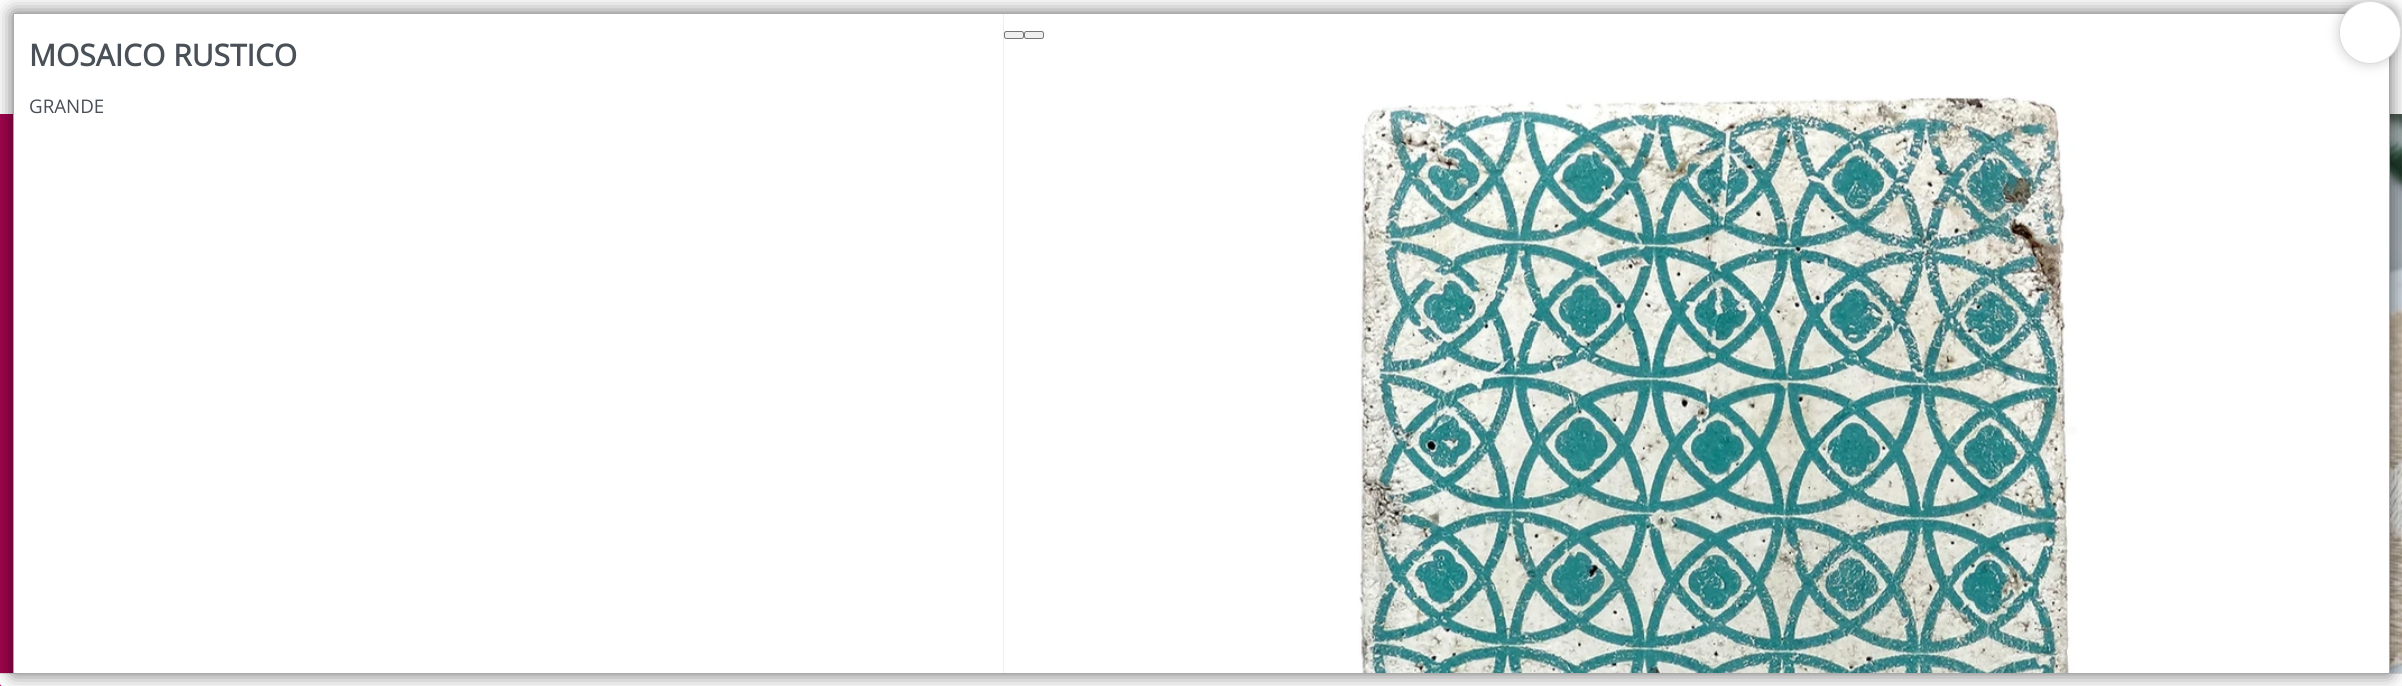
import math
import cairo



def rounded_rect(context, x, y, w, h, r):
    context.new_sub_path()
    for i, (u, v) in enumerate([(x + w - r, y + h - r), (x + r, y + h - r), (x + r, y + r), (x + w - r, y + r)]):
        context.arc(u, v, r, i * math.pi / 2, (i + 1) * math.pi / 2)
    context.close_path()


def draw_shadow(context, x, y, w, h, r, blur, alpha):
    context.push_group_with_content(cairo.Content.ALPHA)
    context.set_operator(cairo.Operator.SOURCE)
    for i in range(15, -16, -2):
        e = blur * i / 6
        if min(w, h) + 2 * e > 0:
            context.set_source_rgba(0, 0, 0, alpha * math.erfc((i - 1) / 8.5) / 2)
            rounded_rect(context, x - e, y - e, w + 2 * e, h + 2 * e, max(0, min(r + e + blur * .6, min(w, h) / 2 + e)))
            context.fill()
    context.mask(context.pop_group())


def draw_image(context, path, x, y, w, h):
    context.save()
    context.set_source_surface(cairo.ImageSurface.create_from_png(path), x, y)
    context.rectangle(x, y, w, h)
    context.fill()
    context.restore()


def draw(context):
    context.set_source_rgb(1, 1, 1)
    context.paint()
    draw_image(context, "images/2.png", 0, 114, 2402, 572)
    context.set_source_rgb(1, 1, 1)
    context.new_path()
    context.move_to(0, 673)
    context.line_to(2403, 673)
    context.line_to(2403, 683.5)
    context.curve_to(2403, 685, 2402, 686, 2400.5, 686)
    context.line_to(2.5, 686)
    context.curve_to(1, 686, 0, 685, 0, 683.5)
    context.close_path()
    context.fill()
    context.set_source_rgb(221 / 255, 221 / 255, 221 / 255)
    context.rectangle(0, 673, 2402, 1)
    context.fill()
    context.set_source_rgb(0, 0, 0)
    draw_shadow(context, 13, 13, 2377, 661, 0, 9.5, 0.6)
    context.set_source_rgb(1, 1, 1)
    context.rectangle(13.5, 13.5, 2376, 660)
    context.fill_preserve()
    context.set_source_rgb(170 / 255, 170 / 255, 170 / 255)
    context.set_line_width(1)
    context.stroke()
    context.set_source_rgb(238 / 255, 238 / 255, 238 / 255)
    context.rectangle(1003, 14, 1, 659)
    context.fill()
    context.set_source_rgb(239 / 255, 239 / 255, 239 / 255)
    rounded_rect(context, 1004.5, 31.5, 19, 7, 2)
    context.fill_preserve()
    context.set_source_rgb(118 / 255, 118 / 255, 118 / 255)
    context.stroke()
    context.set_source_rgb(239 / 255, 239 / 255, 239 / 255)
    rounded_rect(context, 1024.5, 31.5, 19, 7, 2)
    context.fill_preserve()
    context.set_source_rgb(118 / 255, 118 / 255, 118 / 255)
    context.stroke()
    draw_image(context, "images/1.png", 1359, 96, 718, 577)
    context.set_source_rgb(0, 0, 0)
    draw_shadow(context, 2339, 1, 62, 63, 31, 6, 0.2)
    context.set_source_rgb(1, 1, 1)
    rounded_rect(context, 2339.5, 1.5, 61, 62, 30.5)
    context.fill_preserve()
    context.set_source_rgb(221 / 255, 221 / 255, 221 / 255)
    context.stroke()
    context.select_font_face("Open Sans", cairo.FontSlant.NORMAL, cairo.FontWeight.BOLD)
    context.set_font_size(30)
    context.set_source_rgb(73 / 255, 80 / 255, 87 / 255)
    context.move_to(29, 66)
    context.show_text("MOSAICO RUSTICO")
    context.select_font_face("Open Sans")
    context.set_font_size(18.75)
    context.move_to(29, 113)
    context.show_text("GRANDE")


surface = cairo.ImageSurface(cairo.Format.RGB24, 2402, 686)
context = cairo.Context(surface)
options = cairo.FontOptions()
options.set_hint_metrics(cairo.HintMetrics.OFF)
options.set_hint_style(cairo.HintStyle.NONE)
context.set_font_options(options)
context.set_miter_limit(4)
draw(context)
surface.write_to_png("out.png")
